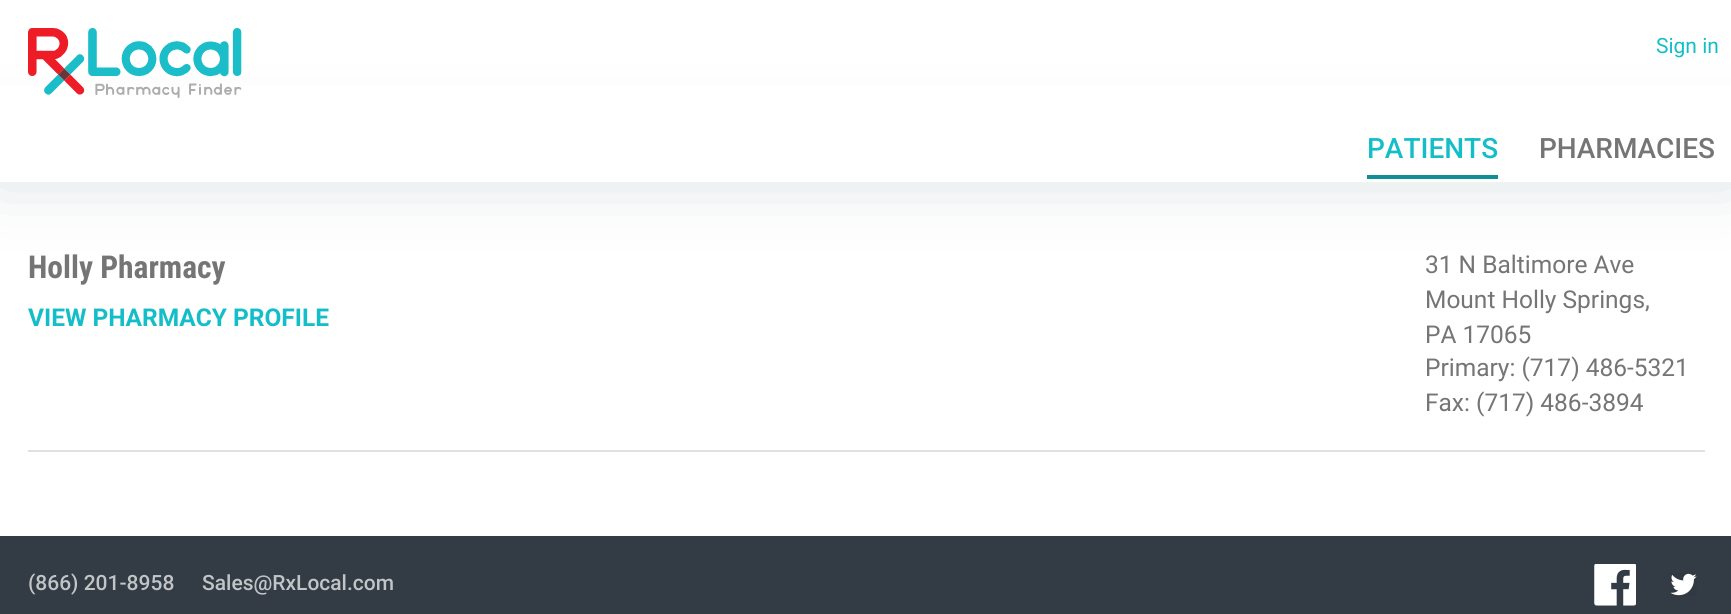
import math
import cairo



def rounded_rect(context, x, y, w, h, r):
    context.new_sub_path()
    for i, (u, v) in enumerate([(x + w - r, y + h - r), (x + r, y + h - r), (x + r, y + r), (x + w - r, y + r)]):
        context.arc(u, v, r, i * math.pi / 2, (i + 1) * math.pi / 2)
    context.close_path()


def draw_shadow(context, x, y, w, h, r, blur, alpha):
    context.push_group_with_content(cairo.Content.ALPHA)
    context.set_operator(cairo.Operator.SOURCE)
    for i in range(15, -16, -2):
        e = blur * i / 6
        if min(w, h) + 2 * e > 0:
            context.set_source_rgba(0, 0, 0, alpha * math.erfc((i - 1) / 8.5) / 2)
            rounded_rect(context, x - e, y - e, w + 2 * e, h + 2 * e, max(0, min(r + e + blur * .6, min(w, h) / 2 + e)))
            context.fill()
    context.mask(context.pop_group())


def draw_image(context, path, x, y, w, h):
    context.save()
    context.set_source_surface(cairo.ImageSurface.create_from_png(path), x, y)
    context.rectangle(x, y, w, h)
    context.fill()
    context.restore()


def draw(context):
    context.set_source_rgb(1, 1, 1)
    context.paint()
    context.set_source_rgb(208 / 255, 220 / 255, 220 / 255)
    draw_shadow(context, 0, 140, 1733, 35, 0, 35, 1)
    context.set_source_rgb(1, 1, 1)
    context.rectangle(0, 85, 1731, 97)
    context.fill()
    draw_image(context, "images/1.png", 28, 28, 214, 70)
    context.set_source_rgb(15 / 255, 142 / 255, 149 / 255)
    context.rectangle(1367, 175, 131, 4)
    context.fill()
    context.set_source_rgb(224 / 255, 224 / 255, 224 / 255)
    context.rectangle(28, 450, 1677, 2)
    context.fill()
    context.set_source_rgb(51 / 255, 60 / 255, 68 / 255)
    context.rectangle(0, 536, 1731, 78)
    context.fill()
    draw_image(context, "images/2.png", 1594, 564, 42, 42)
    draw_image(context, "images/3.png", 1670, 573, 27, 23)
    context.select_font_face("Roboto")
    context.set_font_size(21)
    context.set_source_rgb(20 / 255, 190 / 255, 200 / 255)
    context.move_to(1656, 53)
    context.show_text("Sign in")
    context.select_font_face("Roboto Medium")
    context.set_font_size(28)
    context.move_to(1367, 158)
    context.show_text("PATIENTS")
    context.set_source_rgb(117 / 255, 117 / 255, 117 / 255)
    context.move_to(1539, 158)
    context.show_text("PHARMACIES")
    context.select_font_face("Roboto Condensed", cairo.FontSlant.NORMAL, cairo.FontWeight.BOLD)
    context.set_font_size(31.5)
    context.move_to(28, 278)
    context.show_text("Holly Pharmacy")
    context.select_font_face("Roboto", cairo.FontSlant.NORMAL, cairo.FontWeight.BOLD)
    context.set_font_size(24.5)
    context.set_source_rgb(20 / 255, 190 / 255, 200 / 255)
    context.move_to(28, 326)
    context.show_text("VIEW PHARMACY PROFILE")
    context.select_font_face("Roboto")
    context.set_source_rgb(117 / 255, 117 / 255, 117 / 255)
    context.move_to(1425, 273)
    context.show_text("31 N Baltimore Ave")
    context.move_to(1425, 308)
    context.show_text("Mount Holly Springs,")
    context.move_to(1425, 343)
    context.show_text("PA 17065")
    context.move_to(1425, 376)
    context.show_text("Primary: (717) 486-5321")
    context.move_to(1425, 411)
    context.show_text("Fax: (717) 486-3894")
    context.select_font_face("Roboto Medium")
    context.set_font_size(21)
    context.set_source_rgb(194 / 255, 197 / 255, 199 / 255)
    context.move_to(28, 590)
    context.show_text("(866) 201-8958")
    context.move_to(202, 590)
    context.show_text("Sales@RxLocal.com")


surface = cairo.ImageSurface(cairo.Format.RGB24, 1731, 614)
context = cairo.Context(surface)
options = cairo.FontOptions()
options.set_hint_metrics(cairo.HintMetrics.OFF)
options.set_hint_style(cairo.HintStyle.NONE)
context.set_font_options(options)
context.set_miter_limit(4)
draw(context)
surface.write_to_png("out.png")
